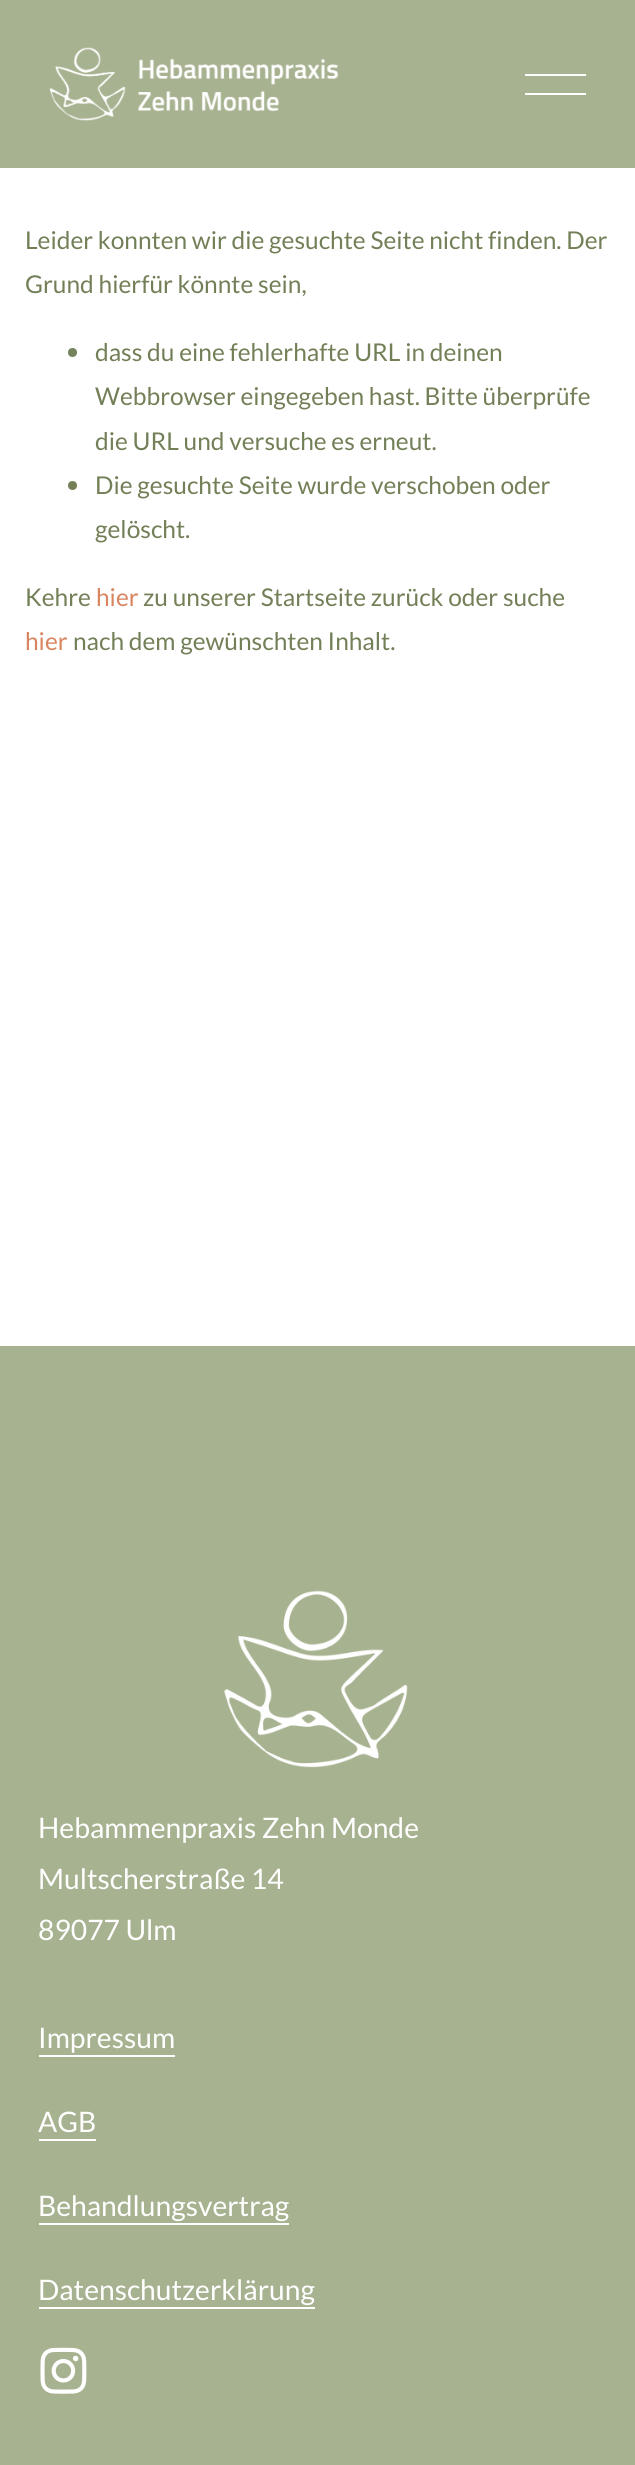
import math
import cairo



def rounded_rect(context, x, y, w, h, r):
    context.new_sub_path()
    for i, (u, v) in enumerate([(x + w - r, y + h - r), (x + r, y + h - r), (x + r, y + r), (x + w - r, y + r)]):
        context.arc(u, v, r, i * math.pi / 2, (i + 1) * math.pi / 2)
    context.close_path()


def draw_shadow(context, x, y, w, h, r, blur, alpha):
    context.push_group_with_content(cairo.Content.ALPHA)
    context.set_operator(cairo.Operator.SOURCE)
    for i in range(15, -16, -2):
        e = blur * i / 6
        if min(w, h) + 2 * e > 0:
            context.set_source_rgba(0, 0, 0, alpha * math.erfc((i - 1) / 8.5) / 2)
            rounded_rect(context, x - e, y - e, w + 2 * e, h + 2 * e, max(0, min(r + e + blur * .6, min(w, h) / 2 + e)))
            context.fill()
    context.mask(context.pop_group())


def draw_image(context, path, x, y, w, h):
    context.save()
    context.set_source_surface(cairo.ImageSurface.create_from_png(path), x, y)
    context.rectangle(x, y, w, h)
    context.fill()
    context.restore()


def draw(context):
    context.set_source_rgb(1, 1, 1)
    context.paint()
    context.set_source_rgb(114 / 255, 127 / 255, 87 / 255)
    context.arc(72.5, 352.5, 4.5, 0, 2 * math.pi)
    context.fill()
    context.arc(72.5, 485.5, 4.5, 0, 2 * math.pi)
    context.fill()
    context.set_source_rgb(1, 1, 1)
    draw_shadow(context, 0, 74, 635, 168, 0, 105, 0.15)
    context.set_source_rgb(167 / 255, 178 / 255, 144 / 255)
    context.rectangle(0, 0, 635, 168)
    context.fill()
    draw_image(context, "images/1.png", 49, 47, 290, 74)
    context.set_source_rgb(1, 1, 1)
    context.rectangle(525, 74, 61, 2)
    context.fill()
    context.rectangle(525, 93, 61, 2)
    context.fill()
    context.set_source_rgb(167 / 255, 178 / 255, 144 / 255)
    context.rectangle(0, 1346, 635, 1119)
    context.fill()
    draw_image(context, "images/2.png", 223, 1590, 185, 178)
    context.set_source_rgb(1, 1, 1)
    context.rectangle(39, 2055, 136, 2)
    context.fill()
    context.rectangle(39, 2139, 57, 2)
    context.fill()
    context.rectangle(39, 2223, 250, 2)
    context.fill()
    context.rectangle(39, 2307, 276, 2)
    context.fill()
    draw_image(context, "images/3.png", 40, 2347, 47, 47)
    context.select_font_face("Lato")
    context.set_font_size(24.5)
    context.set_source_rgb(114 / 255, 127 / 255, 87 / 255)
    context.move_to(25, 249)
    context.show_text("Leider konnten wir die gesuchte Seite nicht finden. Der")
    context.move_to(25, 293)
    context.show_text("Grund hierfür könnte sein,")
    context.move_to(95, 361)
    context.show_text("dass du eine fehlerhafte URL in deinen")
    context.move_to(95, 405)
    context.show_text("Webbrowser eingegeben hast. Bitte überprüfe")
    context.move_to(95, 450)
    context.show_text("die URL und versuche es erneut.")
    context.move_to(95, 494)
    context.show_text("Die gesuchte Seite wurde verschoben oder")
    context.move_to(95, 538)
    context.show_text("gelöscht.")
    context.move_to(25, 606)
    context.show_text("Kehre")
    context.set_source_rgb(217 / 255, 133 / 255, 96 / 255)
    context.move_to(96, 606)
    context.show_text("hier")
    context.set_source_rgb(114 / 255, 127 / 255, 87 / 255)
    context.move_to(143, 606)
    context.show_text("zu unserer Startseite zurück oder suche")
    context.set_source_rgb(217 / 255, 133 / 255, 96 / 255)
    context.move_to(25, 650)
    context.show_text("hier")
    context.set_source_rgb(114 / 255, 127 / 255, 87 / 255)
    context.move_to(73, 650)
    context.show_text("nach dem gewünschten Inhalt.")
    context.set_font_size(28.25)
    context.set_source_rgb(1, 1, 1)
    context.move_to(38, 1838)
    context.show_text("Hebammenpraxis Zehn Monde")
    context.move_to(38, 1889)
    context.show_text("Multscherstraße 14")
    context.move_to(38, 1940)
    context.show_text("89077 Ulm")
    context.move_to(38, 2048)
    context.show_text("Impressum")
    context.move_to(38, 2132)
    context.show_text("AGB")
    context.move_to(38, 2216)
    context.show_text("Behandlungsvertrag")
    context.move_to(38, 2300)
    context.show_text("Datenschutzerklärung")


surface = cairo.ImageSurface(cairo.Format.RGB24, 635, 2465)
context = cairo.Context(surface)
options = cairo.FontOptions()
options.set_hint_metrics(cairo.HintMetrics.OFF)
options.set_hint_style(cairo.HintStyle.NONE)
context.set_font_options(options)
context.set_miter_limit(4)
draw(context)
surface.write_to_png("out.png")
